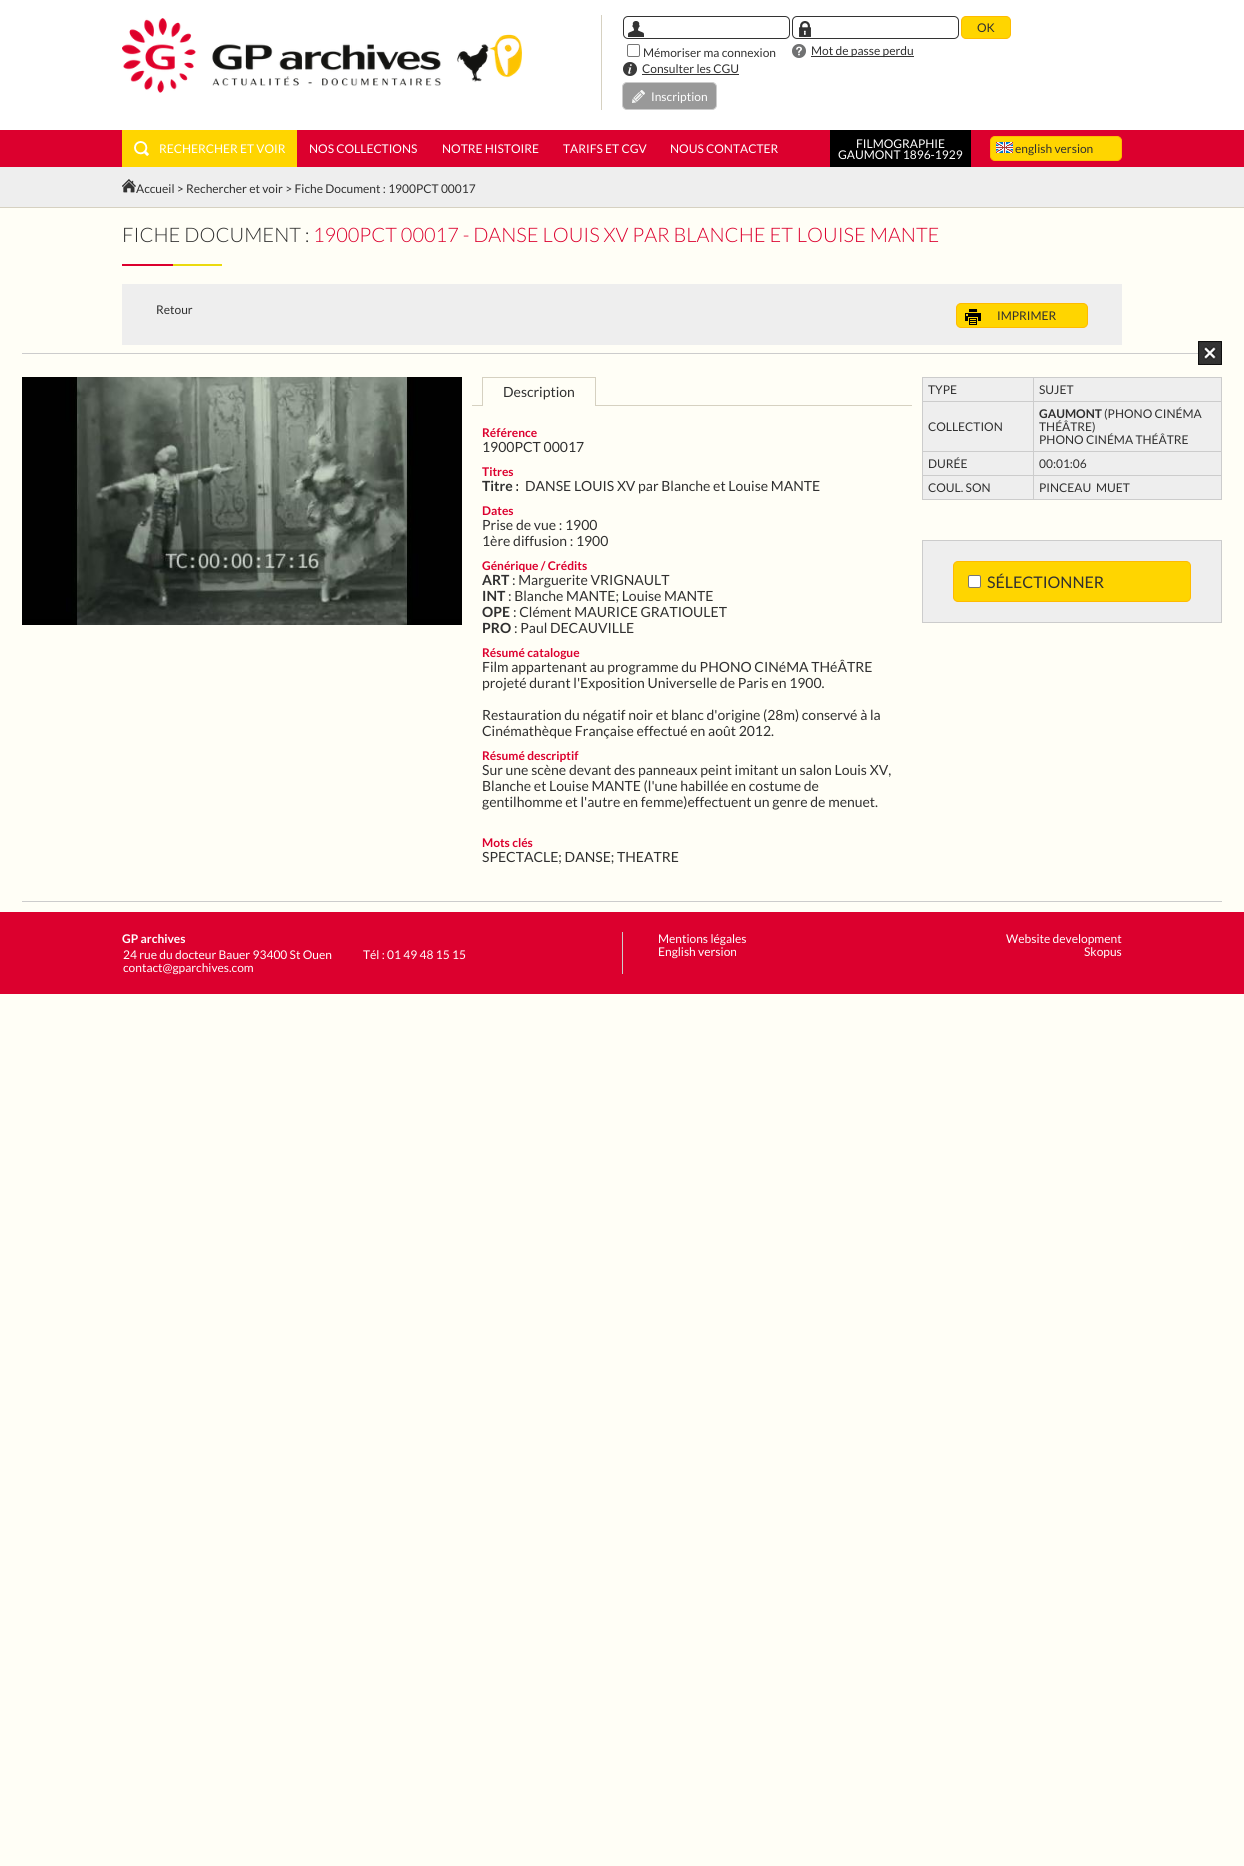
import math
import cairo



def rounded_rect(context, x, y, w, h, r):
    context.new_sub_path()
    for i, (u, v) in enumerate([(x + w - r, y + h - r), (x + r, y + h - r), (x + r, y + r), (x + w - r, y + r)]):
        context.arc(u, v, r, i * math.pi / 2, (i + 1) * math.pi / 2)
    context.close_path()


def draw_image(context, path, x, y, w, h):
    context.save()
    context.set_source_surface(cairo.ImageSurface.create_from_png(path), x, y)
    context.rectangle(x, y, w, h)
    context.fill()
    context.restore()


def draw(context):
    context.set_source_rgb(1, 254 / 255, 246 / 255)
    context.paint()
    context.set_source_rgb(1, 1, 1)
    context.rectangle(0, 0, 1244, 130)
    context.fill()
    draw_image(context, "images/1.png", 122, 18, 400, 75)
    context.set_source_rgb(214 / 255, 209 / 255, 193 / 255)
    context.rectangle(601, 15, 1, 95)
    context.fill()
    rounded_rect(context, 623.5, 16.5, 166, 22, 4.5)
    context.set_source_rgb(51 / 255, 51 / 255, 51 / 255)
    context.set_line_width(1)
    context.stroke()
    draw_image(context, "images/2.png", 628, 21, 16, 16)
    rounded_rect(context, 792.5, 16.5, 166, 22, 4.5)
    context.stroke()
    draw_image(context, "images/3.png", 799, 21, 12, 16)
    context.set_source_rgb(1, 213 / 255, 0)
    rounded_rect(context, 961.5, 16.5, 49, 22, 4.5)
    context.fill_preserve()
    context.set_source_rgb(1, 187 / 255, 0)
    context.stroke()
    rounded_rect(context, 627.5, 44.5, 12, 12, 1.5)
    context.set_source_rgb(118 / 255, 118 / 255, 118 / 255)
    context.stroke()
    draw_image(context, "images/4.png", 792, 44, 14, 14)
    context.set_source_rgb(51 / 255, 51 / 255, 51 / 255)
    context.rectangle(811, 56, 103, 1)
    context.fill()
    draw_image(context, "images/5.png", 623, 62, 14, 14)
    context.rectangle(642, 74, 97, 1)
    context.fill()
    context.set_source_rgb(153 / 255, 153 / 255, 153 / 255)
    rounded_rect(context, 622.5, 82.5, 94, 27, 4.5)
    context.fill_preserve()
    context.set_source_rgb(204 / 255, 204 / 255, 204 / 255)
    context.stroke()
    draw_image(context, "images/6.png", 632, 90, 13, 13)
    context.set_source_rgb(220 / 255, 0, 46 / 255)
    context.rectangle(0, 130, 1244, 37)
    context.fill()
    context.set_source_rgb(1, 213 / 255, 0)
    context.rectangle(122, 130, 175, 37)
    context.fill()
    draw_image(context, "images/7.png", 134, 141, 15, 15)
    context.set_source_rgb(0, 0, 0)
    context.rectangle(830, 130, 141, 37)
    context.fill()
    context.set_source_rgb(1, 213 / 255, 0)
    rounded_rect(context, 990.5, 136.5, 131, 24, 4.5)
    context.fill_preserve()
    context.set_source_rgb(1, 187 / 255, 0)
    context.stroke()
    draw_image(context, "images/8.png", 996, 142, 17, 11)
    context.set_source_rgb(238 / 255, 238 / 255, 238 / 255)
    context.rectangle(0, 167, 1244, 40)
    context.fill()
    context.set_source_rgb(214 / 255, 209 / 255, 193 / 255)
    context.rectangle(0, 207, 1244, 1)
    context.fill()
    draw_image(context, "images/9.png", 122, 179, 14, 14)
    draw_image(context, "images/10.png", 122, 264, 100, 2)
    context.set_source_rgb(238 / 255, 238 / 255, 238 / 255)
    context.rectangle(122, 284, 1000, 61)
    context.fill()
    context.set_source_rgb(1, 213 / 255, 0)
    rounded_rect(context, 956.5, 303.5, 131, 24, 4.5)
    context.fill_preserve()
    context.set_source_rgb(1, 187 / 255, 0)
    context.stroke()
    draw_image(context, "images/11.png", 965, 309, 16, 16)
    context.set_source_rgb(204 / 255, 204 / 255, 204 / 255)
    context.rectangle(22, 353, 1176, 1)
    context.fill()
    draw_image(context, "images/12.png", 1198, 341, 24, 24)
    draw_image(context, "images/13.png", 22, 377, 440, 248)
    context.set_source_rgb(214 / 255, 209 / 255, 193 / 255)
    context.rectangle(472, 405, 440, 1)
    context.fill()
    context.set_source_rgb(1, 254 / 255, 246 / 255)
    context.rectangle(483, 405, 112, 1)
    context.fill()
    context.set_source_rgb(214 / 255, 209 / 255, 193 / 255)
    context.rectangle(482, 377, 114, 1)
    context.fill()
    context.rectangle(595, 377, 1, 29)
    context.fill()
    context.rectangle(482, 377, 1, 29)
    context.fill()
    context.set_source_rgb(238 / 255, 238 / 255, 238 / 255)
    context.rectangle(923, 378, 110, 23)
    context.fill()
    context.set_source_rgb(204 / 255, 204 / 255, 204 / 255)
    context.rectangle(1033, 377, 189, 1)
    context.fill()
    context.rectangle(1033, 401, 189, 1)
    context.fill()
    context.rectangle(1033, 451, 189, 1)
    context.fill()
    context.rectangle(1033, 475, 189, 1)
    context.fill()
    context.rectangle(1221, 475, 1, 25)
    context.fill()
    context.rectangle(1033, 499, 189, 1)
    context.fill()
    context.rectangle(1033, 475, 1, 25)
    context.fill()
    context.rectangle(922, 475, 112, 1)
    context.fill()
    context.rectangle(1033, 451, 1, 25)
    context.fill()
    context.rectangle(922, 451, 112, 1)
    context.fill()
    context.rectangle(1033, 401, 1, 51)
    context.fill()
    context.rectangle(922, 401, 112, 1)
    context.fill()
    context.rectangle(1033, 377, 1, 25)
    context.fill()
    context.rectangle(922, 377, 112, 1)
    context.fill()
    context.rectangle(922, 499, 112, 1)
    context.fill()
    context.rectangle(922, 475, 1, 25)
    context.fill()
    context.rectangle(922, 451, 1, 25)
    context.fill()
    context.rectangle(922, 401, 1, 51)
    context.fill()
    context.rectangle(922, 377, 1, 25)
    context.fill()
    context.set_source_rgb(238 / 255, 238 / 255, 238 / 255)
    context.rectangle(1034, 378, 187, 23)
    context.fill()
    context.set_source_rgb(204 / 255, 204 / 255, 204 / 255)
    context.rectangle(1221, 451, 1, 25)
    context.fill()
    context.rectangle(1221, 401, 1, 51)
    context.fill()
    context.rectangle(1221, 377, 1, 25)
    context.fill()
    context.set_source_rgb(238 / 255, 238 / 255, 238 / 255)
    context.rectangle(923, 402, 110, 49)
    context.fill()
    context.rectangle(1034, 402, 187, 49)
    context.fill()
    context.rectangle(923, 452, 110, 23)
    context.fill()
    context.rectangle(1034, 452, 187, 23)
    context.fill()
    context.rectangle(923, 476, 110, 23)
    context.fill()
    context.rectangle(1034, 476, 187, 23)
    context.fill()
    context.rectangle(922.5, 540.5, 299, 82)
    context.fill_preserve()
    context.set_source_rgb(204 / 255, 204 / 255, 204 / 255)
    context.stroke()
    context.set_source_rgb(1, 213 / 255, 0)
    rounded_rect(context, 953.5, 561.5, 237, 40, 4.5)
    context.fill_preserve()
    context.set_source_rgb(1, 187 / 255, 0)
    context.stroke()
    context.set_source_rgb(1, 1, 1)
    rounded_rect(context, 968.5, 575.5, 12, 12, 1.5)
    context.fill_preserve()
    context.set_source_rgb(118 / 255, 118 / 255, 118 / 255)
    context.stroke()
    context.set_source_rgb(204 / 255, 204 / 255, 204 / 255)
    context.rectangle(22, 901, 1200, 1)
    context.fill()
    context.set_source_rgb(220 / 255, 0, 46 / 255)
    context.rectangle(0, 912, 1244, 82)
    context.fill()
    context.set_source_rgb(204 / 255, 204 / 255, 204 / 255)
    context.rectangle(622, 932, 1, 42)
    context.fill()
    context.select_font_face("Lato")
    context.set_font_size(12)
    context.set_source_rgb(48 / 255, 48 / 255, 48 / 255)
    context.move_to(977, 32)
    context.show_text("OK")
    context.move_to(643, 57)
    context.show_text("Mémoriser ma connexion")
    context.move_to(811, 55)
    context.show_text("Mot de passe perdu")
    context.move_to(642, 73)
    context.show_text("Consulter les CGU")
    context.set_source_rgb(1, 1, 1)
    context.move_to(651, 101)
    context.show_text("Inscription")
    context.move_to(159, 153)
    context.show_text("RECHERCHER ET VOIR")
    context.move_to(309, 153)
    context.show_text("NOS COLLECTIONS")
    context.move_to(442, 153)
    context.show_text("NOTRE HISTOIRE")
    context.move_to(563, 153)
    context.show_text("TARIFS ET CGV")
    context.move_to(670, 153)
    context.show_text("NOUS CONTACTER")
    context.move_to(856, 148)
    context.show_text("FILMOGRAPHIE")
    context.move_to(838, 159)
    context.show_text("GAUMONT 1896-1929")
    context.set_source_rgb(48 / 255, 48 / 255, 48 / 255)
    context.move_to(1015, 153)
    context.show_text("english version")
    context.move_to(136, 193)
    context.show_text("Accueil > Rechercher et voir > Fiche Document : 1900PCT 00017")
    context.select_font_face("Lato Light")
    context.set_font_size(20)
    context.move_to(122, 242)
    context.show_text("FICHE DOCUMENT :")
    context.set_source_rgb(220 / 255, 0, 46 / 255)
    context.move_to(313, 242)
    context.show_text("1900PCT 00017 - DANSE LOUIS XV PAR BLANCHE ET LOUISE MANTE")
    context.select_font_face("Lato")
    context.set_font_size(12)
    context.set_source_rgb(48 / 255, 48 / 255, 48 / 255)
    context.move_to(156, 314)
    context.show_text("Retour")
    context.move_to(997, 320)
    context.show_text("IMPRIMER")
    context.set_font_size(14)
    context.move_to(503, 397)
    context.show_text("Description")
    context.select_font_face("Lato", cairo.FontSlant.NORMAL, cairo.FontWeight.BOLD)
    context.set_font_size(12)
    context.set_source_rgb(220 / 255, 0, 46 / 255)
    context.move_to(482, 437)
    context.show_text("Référence")
    context.select_font_face("Lato")
    context.set_font_size(14)
    context.set_source_rgb(48 / 255, 48 / 255, 48 / 255)
    context.move_to(482, 452)
    context.show_text("1900PCT 00017")
    context.select_font_face("Lato", cairo.FontSlant.NORMAL, cairo.FontWeight.BOLD)
    context.set_font_size(12)
    context.set_source_rgb(220 / 255, 0, 46 / 255)
    context.move_to(482, 476)
    context.show_text("Titres")
    context.set_font_size(14)
    context.set_source_rgb(48 / 255, 48 / 255, 48 / 255)
    context.move_to(482, 491)
    context.show_text("Titre :")
    context.select_font_face("Lato")
    context.move_to(525, 491)
    context.show_text("DANSE LOUIS XV par Blanche et Louise MANTE")
    context.select_font_face("Lato", cairo.FontSlant.NORMAL, cairo.FontWeight.BOLD)
    context.set_font_size(12)
    context.set_source_rgb(220 / 255, 0, 46 / 255)
    context.move_to(482, 515)
    context.show_text("Dates")
    context.select_font_face("Lato")
    context.set_font_size(14)
    context.set_source_rgb(48 / 255, 48 / 255, 48 / 255)
    context.move_to(482, 530)
    context.show_text("Prise de vue : 1900")
    context.move_to(482, 546)
    context.show_text("1ère diffusion : 1900")
    context.select_font_face("Lato", cairo.FontSlant.NORMAL, cairo.FontWeight.BOLD)
    context.set_font_size(12)
    context.set_source_rgb(220 / 255, 0, 46 / 255)
    context.move_to(482, 570)
    context.show_text("Générique / Crédits")
    context.set_font_size(14)
    context.set_source_rgb(48 / 255, 48 / 255, 48 / 255)
    context.move_to(482, 585)
    context.show_text("ART")
    context.select_font_face("Lato")
    context.move_to(512, 585)
    context.show_text(": Marguerite VRIGNAULT")
    context.select_font_face("Lato", cairo.FontSlant.NORMAL, cairo.FontWeight.BOLD)
    context.move_to(482, 601)
    context.show_text("INT")
    context.select_font_face("Lato")
    context.move_to(508, 601)
    context.show_text(": Blanche MANTE; Louise MANTE")
    context.select_font_face("Lato", cairo.FontSlant.NORMAL, cairo.FontWeight.BOLD)
    context.move_to(482, 617)
    context.show_text("OPE")
    context.select_font_face("Lato")
    context.move_to(513, 617)
    context.show_text(": Clément MAURICE GRATIOULET")
    context.select_font_face("Lato", cairo.FontSlant.NORMAL, cairo.FontWeight.BOLD)
    context.move_to(482, 633)
    context.show_text("PRO")
    context.select_font_face("Lato")
    context.move_to(514, 633)
    context.show_text(": Paul DECAUVILLE")
    context.select_font_face("Lato", cairo.FontSlant.NORMAL, cairo.FontWeight.BOLD)
    context.set_font_size(12)
    context.set_source_rgb(220 / 255, 0, 46 / 255)
    context.move_to(482, 657)
    context.show_text("Résumé catalogue")
    context.select_font_face("Lato")
    context.set_font_size(14)
    context.set_source_rgb(48 / 255, 48 / 255, 48 / 255)
    context.move_to(482, 672)
    context.show_text("Film appartenant au programme du PHONO CINéMA THéÂTRE")
    context.move_to(482, 688)
    context.show_text("projeté durant l'Exposition Universelle de Paris en 1900.")
    context.move_to(482, 720)
    context.show_text("Restauration du négatif noir et blanc d'origine (28m) conservé à la")
    context.move_to(482, 736)
    context.show_text("Cinémathèque Française effectué en août 2012.")
    context.select_font_face("Lato", cairo.FontSlant.NORMAL, cairo.FontWeight.BOLD)
    context.set_font_size(12)
    context.set_source_rgb(220 / 255, 0, 46 / 255)
    context.move_to(482, 760)
    context.show_text("Résumé descriptif")
    context.select_font_face("Lato")
    context.set_font_size(14)
    context.set_source_rgb(48 / 255, 48 / 255, 48 / 255)
    context.move_to(482, 775)
    context.show_text("Sur une scène devant des panneaux peint imitant un salon Louis XV,")
    context.move_to(482, 791)
    context.show_text("Blanche et Louise MANTE (l'une habillée en costume de")
    context.move_to(482, 807)
    context.show_text("gentilhomme et l'autre en femme)effectuent un genre de menuet.")
    context.select_font_face("Lato", cairo.FontSlant.NORMAL, cairo.FontWeight.BOLD)
    context.set_font_size(12)
    context.set_source_rgb(220 / 255, 0, 46 / 255)
    context.move_to(482, 847)
    context.show_text("Mots clés")
    context.select_font_face("Lato")
    context.set_font_size(14)
    context.set_source_rgb(48 / 255, 48 / 255, 48 / 255)
    context.move_to(482, 862)
    context.show_text("SPECTACLE; DANSE; THEATRE")
    context.set_font_size(12)
    context.move_to(928, 394)
    context.show_text("TYPE")
    context.move_to(1039, 394)
    context.show_text("SUJET")
    context.move_to(928, 431)
    context.show_text("COLLECTION")
    context.select_font_face("Lato", cairo.FontSlant.NORMAL, cairo.FontWeight.BOLD)
    context.move_to(1039, 418)
    context.show_text("GAUMONT")
    context.select_font_face("Lato")
    context.move_to(1104, 418)
    context.show_text("(PHONO CINÉMA")
    context.move_to(1039, 431)
    context.show_text("THÉÂTRE)")
    context.move_to(1039, 444)
    context.show_text("PHONO CINÉMA THÉÂTRE")
    context.move_to(928, 468)
    context.show_text("DURÉE")
    context.move_to(1039, 468)
    context.show_text("00:01:06")
    context.move_to(928, 492)
    context.show_text("COUL. SON")
    context.move_to(1039, 492)
    context.show_text("PINCEAU")
    context.move_to(1096, 492)
    context.show_text("MUET")
    context.set_font_size(16)
    context.move_to(987, 588)
    context.show_text("SÉLECTIONNER")
    context.select_font_face("Lato", cairo.FontSlant.NORMAL, cairo.FontWeight.BOLD)
    context.set_font_size(12)
    context.set_source_rgb(1, 1, 1)
    context.move_to(122, 943)
    context.show_text("GP archives")
    context.select_font_face("Lato")
    context.move_to(123, 959)
    context.show_text("24 rue du docteur Bauer 93400 St Ouen")
    context.move_to(123, 972)
    context.show_text("contact@gparchives.com")
    context.move_to(363, 959)
    context.show_text("Tél : 01 49 48 15 15")
    context.move_to(658, 943)
    context.show_text("Mentions légales")
    context.move_to(658, 956)
    context.show_text("English version")
    context.move_to(1006, 943)
    context.show_text("Website development")
    context.move_to(1084, 956)
    context.show_text("Skopus")


surface = cairo.ImageSurface(cairo.Format.RGB24, 1244, 1866)
context = cairo.Context(surface)
options = cairo.FontOptions()
options.set_hint_metrics(cairo.HintMetrics.OFF)
options.set_hint_style(cairo.HintStyle.NONE)
context.set_font_options(options)
context.set_miter_limit(4)
draw(context)
surface.write_to_png("out.png")
